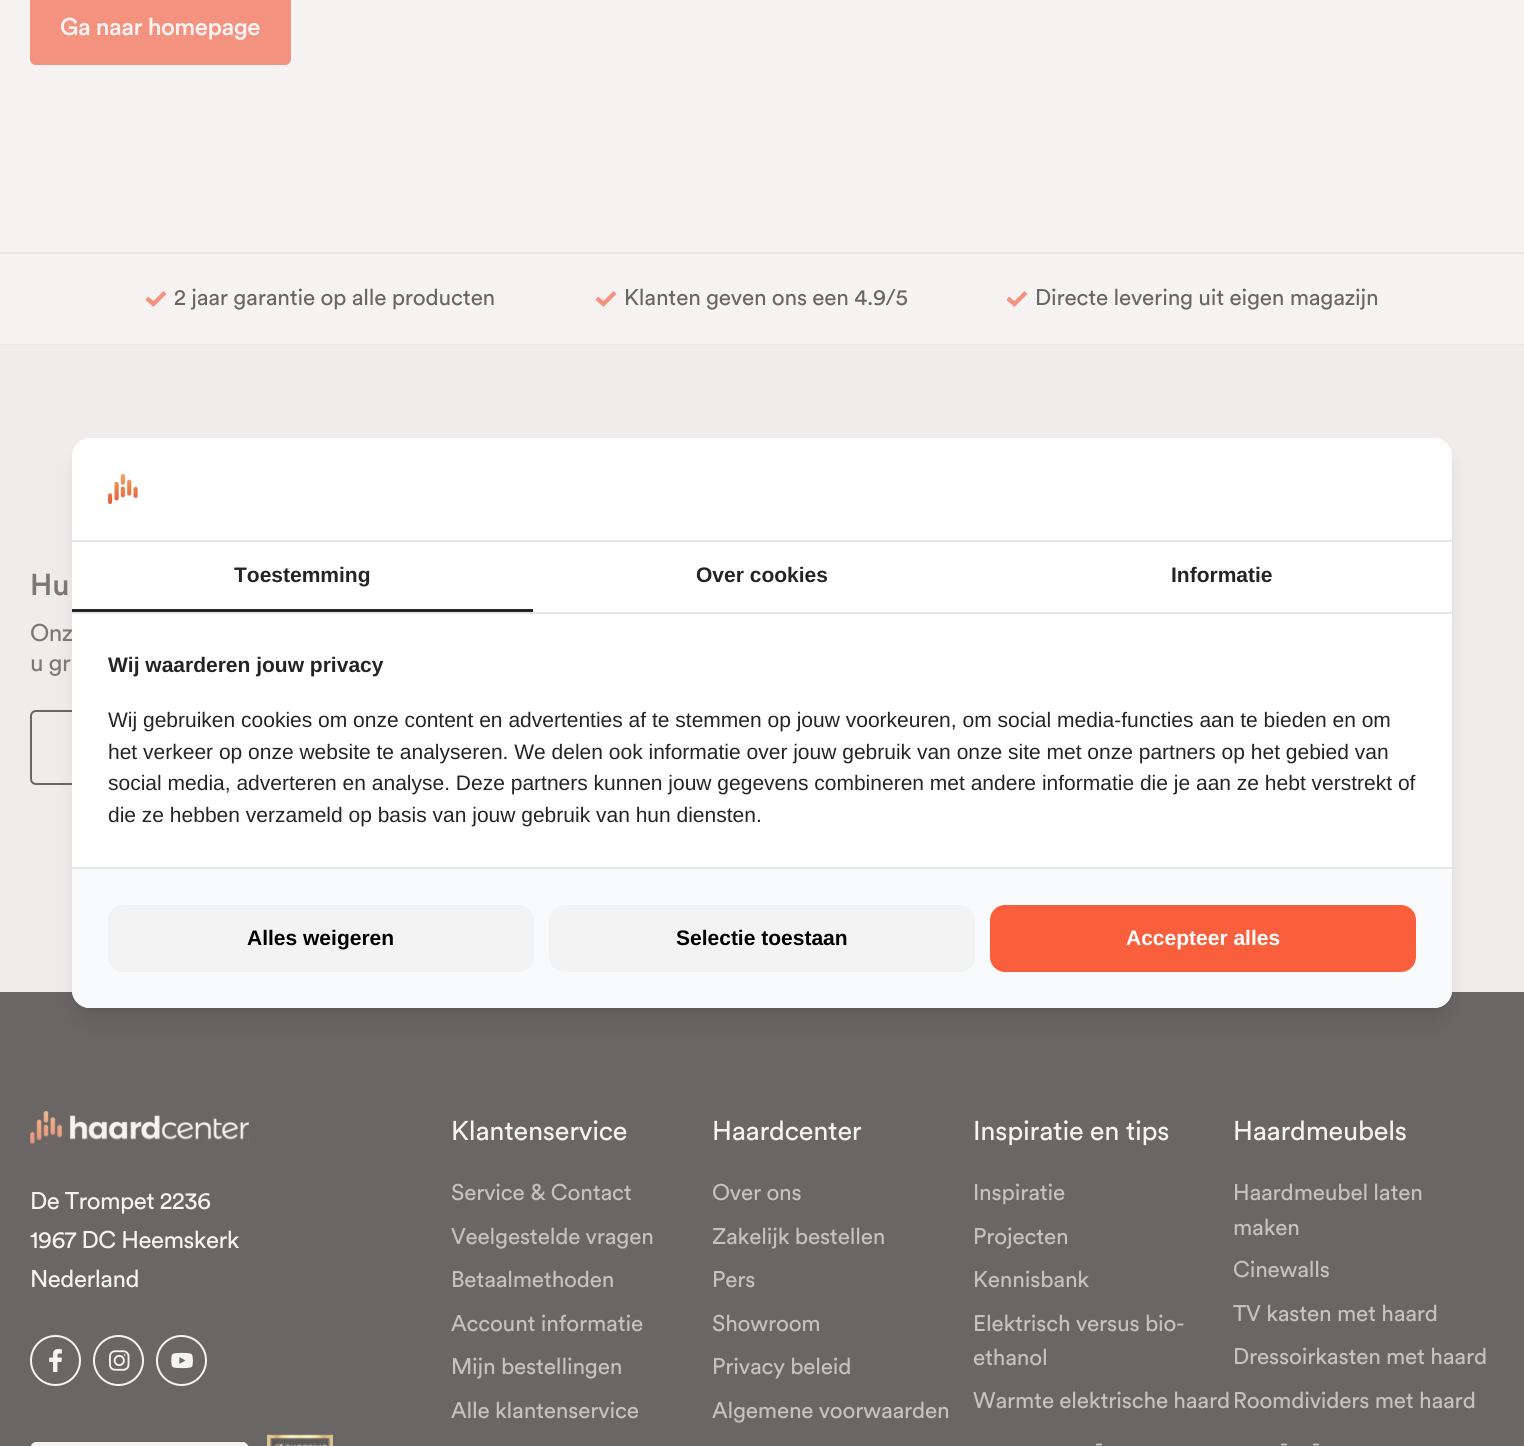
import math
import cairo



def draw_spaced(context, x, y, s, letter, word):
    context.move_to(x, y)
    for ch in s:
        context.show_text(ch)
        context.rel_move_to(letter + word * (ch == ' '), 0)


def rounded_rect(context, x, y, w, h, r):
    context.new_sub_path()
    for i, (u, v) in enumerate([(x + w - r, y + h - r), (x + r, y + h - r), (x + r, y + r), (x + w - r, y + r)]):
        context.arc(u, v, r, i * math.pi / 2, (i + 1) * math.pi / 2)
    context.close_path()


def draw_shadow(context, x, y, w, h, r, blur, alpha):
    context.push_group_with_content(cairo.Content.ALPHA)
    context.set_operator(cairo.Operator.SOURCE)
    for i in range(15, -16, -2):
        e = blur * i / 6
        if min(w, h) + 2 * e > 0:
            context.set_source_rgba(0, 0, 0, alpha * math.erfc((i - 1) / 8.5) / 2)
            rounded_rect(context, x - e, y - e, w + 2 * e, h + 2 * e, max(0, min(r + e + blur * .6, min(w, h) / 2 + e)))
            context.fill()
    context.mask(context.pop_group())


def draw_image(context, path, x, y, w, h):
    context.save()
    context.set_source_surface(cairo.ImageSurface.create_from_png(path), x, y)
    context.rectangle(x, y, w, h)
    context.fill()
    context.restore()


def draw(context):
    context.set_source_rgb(247 / 255, 243 / 255, 243 / 255)
    context.paint()
    context.set_source_rgb(243 / 255, 147 / 255, 127 / 255)
    rounded_rect(context, 30, -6, 261, 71, 6)
    context.fill()
    context.set_source_rgb(234 / 255, 230 / 255, 230 / 255)
    context.rectangle(0, 252, 1524, 2)
    context.fill()
    context.rectangle(0, 344, 1524, 1)
    context.fill()
    context.set_source_rgb(243 / 255, 147 / 255, 127 / 255)
    context.new_path()
    context.move_to(163.5, 291)
    context.line_to(153.5, 301)
    context.line_to(148, 296.5)
    context.line_to(145.5, 300)
    context.line_to(153.5, 307)
    context.line_to(166.5, 294)
    context.close_path()
    context.fill()
    context.new_path()
    context.move_to(613.5, 291)
    context.line_to(603.5, 301)
    context.line_to(598, 296.5)
    context.line_to(595.5, 300)
    context.line_to(603.5, 307)
    context.line_to(616.5, 294)
    context.close_path()
    context.fill()
    context.new_path()
    context.move_to(1024.5, 291)
    context.line_to(1014.5, 301)
    context.line_to(1009, 296.5)
    context.line_to(1006.5, 300)
    context.line_to(1014.5, 307)
    context.line_to(1027.5, 294)
    context.close_path()
    context.fill()
    context.set_source_rgb(240 / 255, 236 / 255, 236 / 255)
    context.rectangle(0, 345, 1524, 647)
    context.fill()
    rounded_rect(context, 31, 711, 244, 73, 5)
    context.set_source_rgb(106 / 255, 102 / 255, 102 / 255)
    context.stroke()
    context.rectangle(0, 992, 1524, 454)
    context.fill()
    draw_image(context, "images/1.png", 30, 1111, 219, 33)
    context.arc(55.5, 1360.5, 24.5, 0, 2 * math.pi)
    context.set_source_rgb(247 / 255, 243 / 255, 243 / 255)
    context.stroke()
    draw_image(context, "images/2.png", 49, 1349, 13, 23)
    context.arc(118.5, 1360.5, 24.5, 0, 2 * math.pi)
    context.stroke()
    draw_image(context, "images/3.png", 109, 1350, 21, 21)
    context.arc(181.5, 1360.5, 24.5, 0, 2 * math.pi)
    context.stroke()
    draw_image(context, "images/4.png", 171, 1352, 22, 17)
    draw_image(context, "images/5.png", 30, 1442, 219, 4)
    draw_image(context, "images/6.png", 267, 1434, 66, 12)
    context.set_source_rgb(0, 0, 0)
    draw_shadow(context, 78, 450, 1368, 558, 12, 4.5, 0.1)
    draw_shadow(context, 77, 458, 1371, 561, 14, 11, 0.1)
    context.set_source_rgb(1, 1, 1)
    rounded_rect(context, 72, 438, 1380, 570, 18)
    context.fill()
    context.set_source_rgb(229 / 255, 231 / 255, 235 / 255)
    context.rectangle(72, 540, 1380, 2)
    context.fill()
    draw_image(context, "images/7.png", 108, 474, 30, 30)
    context.rectangle(72, 612, 1380, 2)
    context.fill()
    context.set_source_rgb(36 / 255, 36 / 255, 36 / 255)
    context.rectangle(72, 609, 461, 3)
    context.fill()
    context.save()
    rounded_rect(context, 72, 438, 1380, 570, 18)
    context.clip()
    context.set_source_rgb(1, 1, 1)
    draw_shadow(context, 60, 825, 1404, 165, 0, 15, 1)
    context.restore()
    context.set_source_rgb(249 / 255, 250 / 255, 251 / 255)
    context.new_path()
    context.move_to(72, 869)
    context.line_to(1452, 869)
    context.line_to(1452, 990)
    context.curve_to(1452, 1000, 1444, 1008, 1434, 1008)
    context.line_to(90, 1008)
    context.curve_to(80, 1008, 72, 1000, 72, 990)
    context.close_path()
    context.fill()
    context.set_source_rgb(229 / 255, 231 / 255, 235 / 255)
    context.rectangle(72, 867, 1380, 2)
    context.fill()
    context.set_source_rgb(243 / 255, 243 / 255, 243 / 255)
    rounded_rect(context, 108, 905, 426, 67, 15)
    context.fill()
    rounded_rect(context, 549, 905, 426, 67, 15)
    context.fill()
    context.set_source_rgb(249 / 255, 95 / 255, 61 / 255)
    rounded_rect(context, 990, 905, 426, 67, 15)
    context.fill()
    context.select_font_face("Circular Medium")
    context.set_font_size(24)
    context.set_source_rgb(247 / 255, 243 / 255, 243 / 255)
    draw_spaced(context, 60, 35, "Ga naar homepage", -0.5, 0)
    context.select_font_face("Circular")
    context.set_font_size(22.5)
    context.set_source_rgb(106 / 255, 102 / 255, 102 / 255)
    draw_spaced(context, 174, 305, "2 jaar garantie op alle producten", -0.2, 0)
    draw_spaced(context, 624, 305, "Klanten geven ons een 4.9/5", -0.2, 0)
    draw_spaced(context, 1035, 305, "Directe levering uit eigen magazijn", -0.2, 0)
    context.select_font_face("Circular Medium")
    context.set_font_size(30)
    context.set_source_rgb(122 / 255, 119 / 255, 119 / 255)
    context.move_to(30, 595)
    context.show_text("Hu")
    context.select_font_face("Circular")
    context.set_font_size(24)
    draw_spaced(context, 30, 641, "Onz", -0.5, 0)
    draw_spaced(context, 30, 671, "u gr", -0.5, 0)
    context.set_source_rgb(247 / 255, 243 / 255, 243 / 255)
    draw_spaced(context, 30, 1209, "De Trompet 2236", -0.5, 0)
    draw_spaced(context, 30, 1248, "1967 DC Heemskerk", -0.5, 0)
    draw_spaced(context, 30, 1287, "Nederland", -0.5, 0)
    context.set_font_size(27)
    draw_spaced(context, 451, 1140, "Klantenservice", -0.25, 0)
    context.set_font_size(22.5)
    context.set_source_rgb(197 / 255, 194 / 255, 194 / 255)
    draw_spaced(context, 451, 1200, "Service & Contact", -0.2, 0)
    draw_spaced(context, 451, 1244, "Veelgestelde vragen", -0.2, 0)
    draw_spaced(context, 451, 1287, "Betaalmethoden", -0.2, 0)
    draw_spaced(context, 451, 1331, "Account informatie", -0.2, 0)
    draw_spaced(context, 451, 1374, "Mijn bestellingen", -0.2, 0)
    draw_spaced(context, 451, 1418, "Alle klantenservice", -0.2, 0)
    context.set_font_size(27)
    context.set_source_rgb(247 / 255, 243 / 255, 243 / 255)
    draw_spaced(context, 712, 1140, "Haardcenter", -0.25, 0)
    context.set_font_size(22.5)
    context.set_source_rgb(197 / 255, 194 / 255, 194 / 255)
    draw_spaced(context, 712, 1200, "Over ons", -0.2, 0)
    draw_spaced(context, 712, 1244, "Zakelijk bestellen", -0.2, 0)
    draw_spaced(context, 712, 1287, "Pers", -0.2, 0)
    draw_spaced(context, 712, 1331, "Showroom", -0.2, 0)
    draw_spaced(context, 712, 1374, "Privacy beleid", -0.2, 0)
    draw_spaced(context, 712, 1418, "Algemene voorwaarden", -0.2, 0)
    context.set_font_size(27)
    context.set_source_rgb(247 / 255, 243 / 255, 243 / 255)
    draw_spaced(context, 973, 1140, "Inspiratie en tips", -0.25, 0)
    context.set_font_size(22.5)
    context.set_source_rgb(197 / 255, 194 / 255, 194 / 255)
    draw_spaced(context, 973, 1200, "Inspiratie", -0.2, 0)
    draw_spaced(context, 973, 1244, "Projecten", -0.2, 0)
    draw_spaced(context, 973, 1287, "Kennisbank", -0.2, 0)
    draw_spaced(context, 973, 1331, "Elektrisch versus bio-", -0.2, 0)
    draw_spaced(context, 973, 1365, "ethanol", -0.2, 0)
    draw_spaced(context, 973, 1408, "Warmte elektrische haard", -0.2, 0)
    draw_spaced(context, 1095, 1451, "-", -0.2, 0)
    context.set_font_size(27)
    context.set_source_rgb(247 / 255, 243 / 255, 243 / 255)
    draw_spaced(context, 1233, 1140, "Haardmeubels", -0.25, 0)
    context.set_font_size(22.5)
    context.set_source_rgb(197 / 255, 194 / 255, 194 / 255)
    draw_spaced(context, 1233, 1200, "Haardmeubel laten", -0.2, 0)
    draw_spaced(context, 1233, 1235, "maken", -0.2, 0)
    draw_spaced(context, 1233, 1277, "Cinewalls", -0.2, 0)
    draw_spaced(context, 1233, 1321, "TV kasten met haard", -0.2, 0)
    draw_spaced(context, 1233, 1364, "Dressoirkasten met haard", -0.2, 0)
    draw_spaced(context, 1233, 1408, "Roomdividers met haard", -0.2, 0)
    draw_spaced(context, 1280, 1451, "-", -0.2, 0)
    draw_spaced(context, 1312, 1451, "-", -0.2, 0)
    context.select_font_face("Liberation Sans", cairo.FontSlant.NORMAL, cairo.FontWeight.BOLD)
    context.set_font_size(21)
    context.set_source_rgb(36 / 255, 36 / 255, 36 / 255)
    context.move_to(234, 582)
    context.show_text("Toestemming")
    context.move_to(696, 582)
    context.show_text("Over cookies")
    context.move_to(1171, 582)
    context.show_text("Informatie")
    context.move_to(108, 672)
    context.show_text("Wij waarderen jouw privacy")
    context.select_font_face("Liberation Sans")
    context.move_to(108, 727)
    context.show_text("Wij gebruiken cookies om onze content en advertenties af te stemmen op jouw voorkeuren, om social media-functies aan te bieden en om")
    context.move_to(108, 759)
    context.show_text("het verkeer op onze website te analyseren. We delen ook informatie over jouw gebruik van onze site met onze partners op het gebied van")
    context.move_to(108, 790)
    context.show_text("social media, adverteren en analyse. Deze partners kunnen jouw gegevens combineren met andere informatie die je aan ze hebt verstrekt of")
    context.move_to(108, 822)
    context.show_text("die ze hebben verzameld op basis van jouw gebruik van hun diensten.")
    context.select_font_face("Liberation Sans", cairo.FontSlant.NORMAL, cairo.FontWeight.BOLD)
    context.set_source_rgb(0, 0, 0)
    context.move_to(247, 945)
    context.show_text("Alles weigeren")
    context.move_to(676, 945)
    context.show_text("Selectie toestaan")
    context.set_source_rgb(1, 1, 1)
    context.move_to(1126, 945)
    context.show_text("Accepteer alles")


surface = cairo.ImageSurface(cairo.Format.RGB24, 1524, 1446)
context = cairo.Context(surface)
options = cairo.FontOptions()
options.set_hint_metrics(cairo.HintMetrics.OFF)
options.set_hint_style(cairo.HintStyle.NONE)
context.set_font_options(options)
context.set_miter_limit(4)
draw(context)
surface.write_to_png("out.png")
